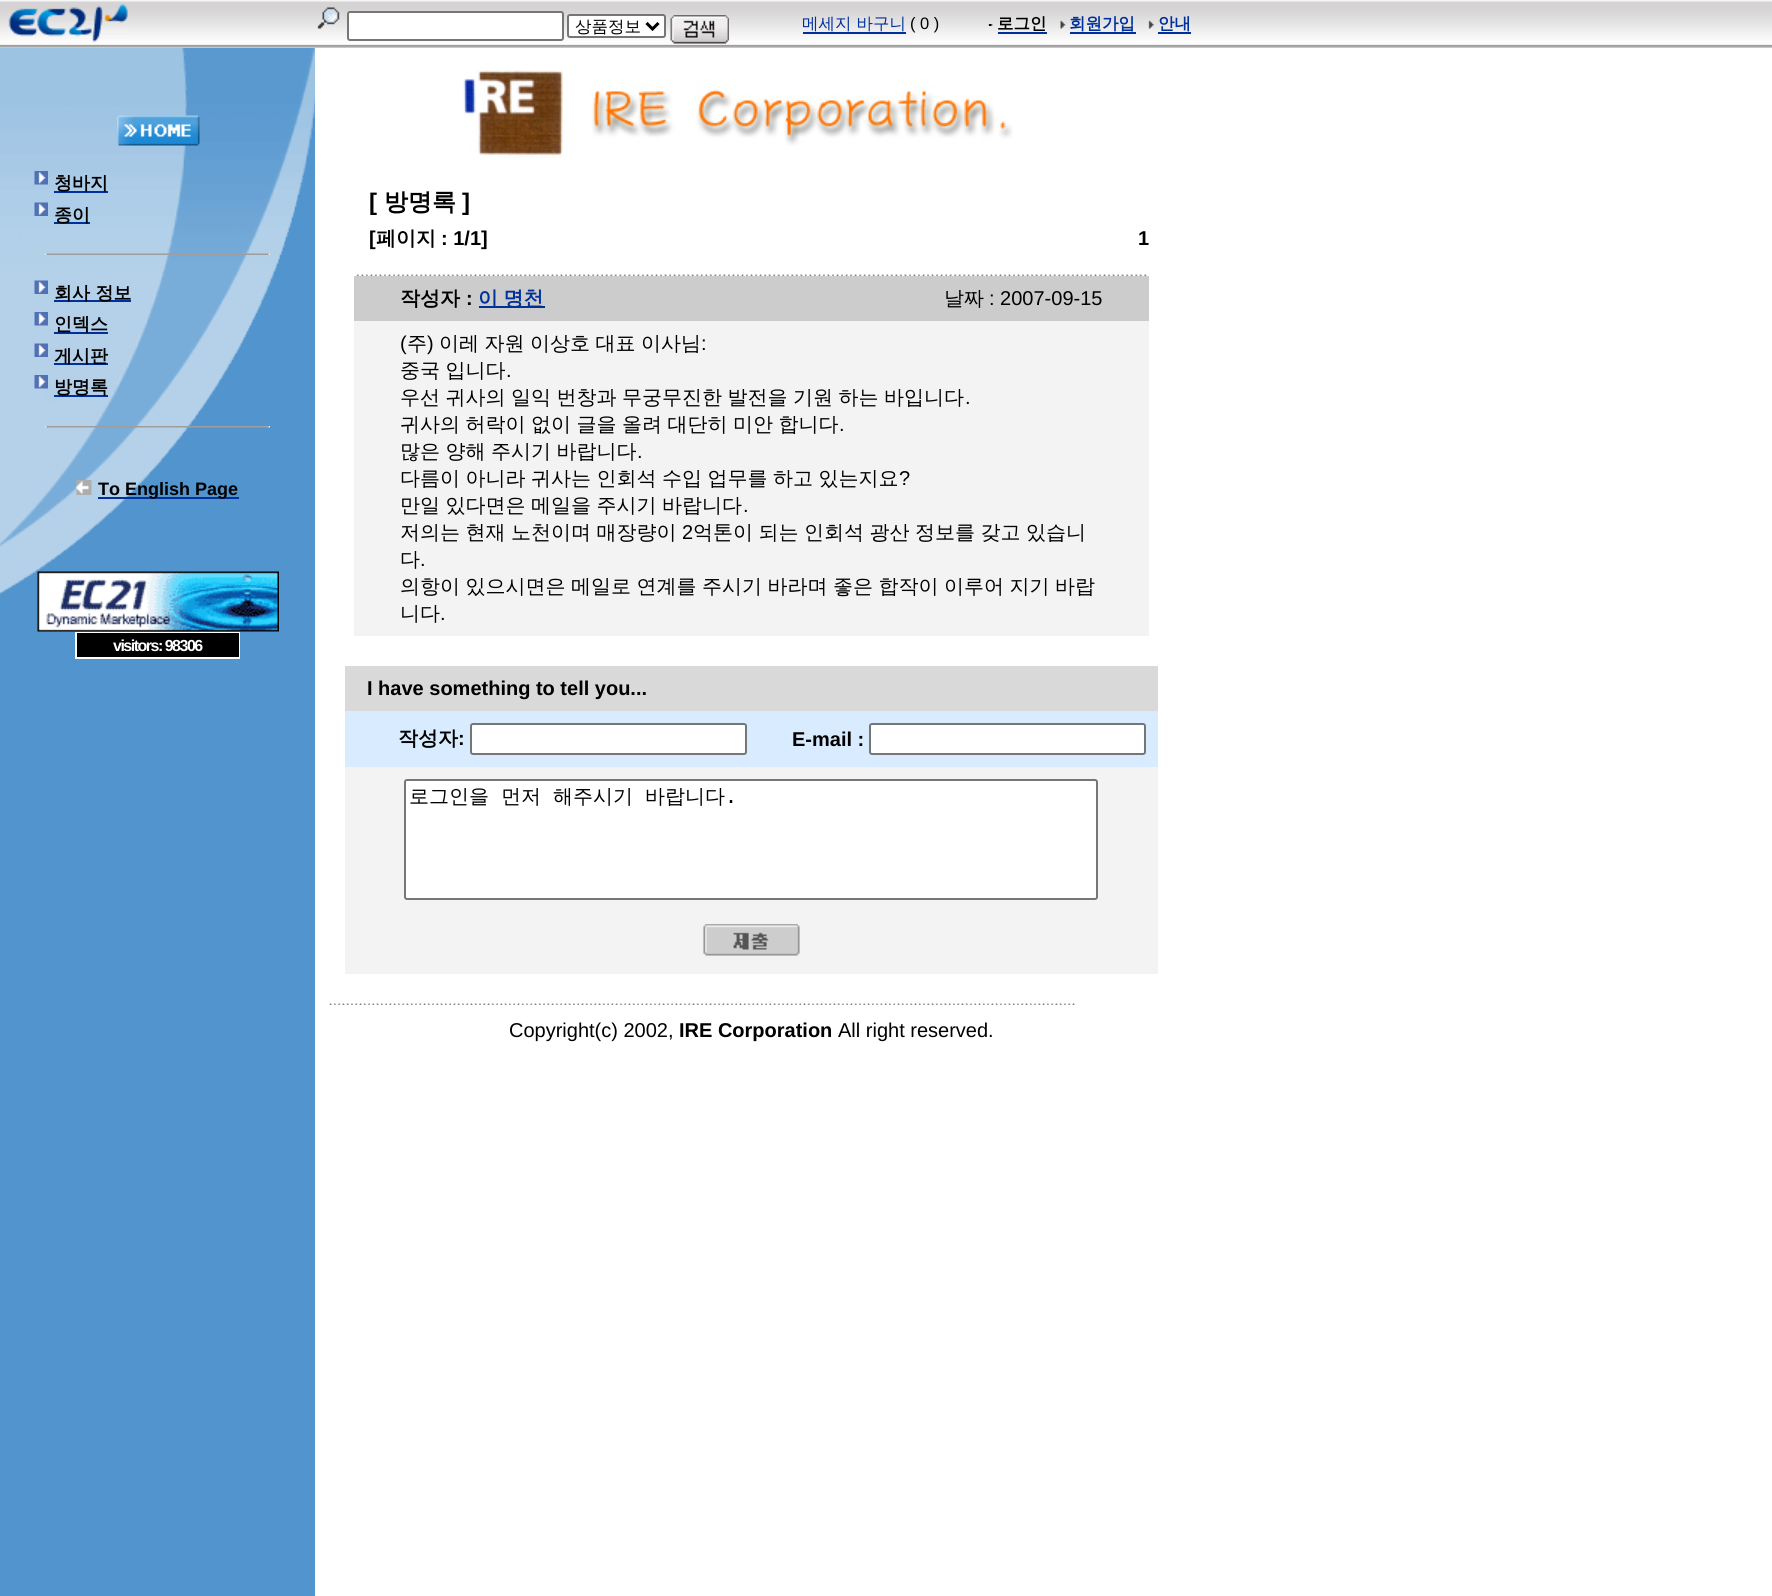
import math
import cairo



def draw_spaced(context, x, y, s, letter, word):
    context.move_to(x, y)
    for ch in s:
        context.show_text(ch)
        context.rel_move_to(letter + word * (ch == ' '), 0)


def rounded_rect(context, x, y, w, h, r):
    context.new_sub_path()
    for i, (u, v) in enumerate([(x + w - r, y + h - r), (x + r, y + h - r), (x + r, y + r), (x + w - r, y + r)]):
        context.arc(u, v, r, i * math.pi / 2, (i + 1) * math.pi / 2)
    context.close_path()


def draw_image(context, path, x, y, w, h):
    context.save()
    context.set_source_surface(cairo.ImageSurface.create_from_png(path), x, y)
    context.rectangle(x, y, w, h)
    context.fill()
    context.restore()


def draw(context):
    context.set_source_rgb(1, 1, 1)
    context.paint()
    draw_image(context, "images/1.png", 0, 0, 1772, 48)
    draw_image(context, "images/2.png", 8, 4, 120, 39)
    draw_image(context, "images/3.png", 317, 7, 23, 22)
    context.set_source_rgb(1, 1, 1)
    rounded_rect(context, 348, 12, 215, 28, 2)
    context.fill_preserve()
    context.set_source_rgb(118 / 255, 118 / 255, 118 / 255)
    context.stroke()
    context.set_source_rgb(1, 1, 1)
    rounded_rect(context, 568, 15, 97, 22, 2)
    context.fill_preserve()
    context.set_source_rgb(118 / 255, 118 / 255, 118 / 255)
    context.stroke()
    context.new_path()
    context.move_to(646.5, 23)
    context.line_to(652.5, 29)
    context.line_to(658.5, 23)
    context.set_source_rgb(0, 0, 0)
    context.set_line_width(3)
    context.stroke()
    draw_image(context, "images/4.png", 670, 15, 59, 29)
    context.set_source_rgb(0, 48 / 255, 156 / 255)
    context.rectangle(803, 32, 103, 2)
    context.fill()
    draw_image(context, "images/5.png", 988, 24, 5, 2)
    context.rectangle(998, 32, 49, 2)
    context.fill()
    draw_image(context, "images/6.png", 1060, 20, 6, 9)
    context.rectangle(1070, 32, 66, 2)
    context.fill()
    draw_image(context, "images/7.png", 1148, 20, 6, 9)
    context.rectangle(1158, 32, 33, 2)
    context.fill()
    context.set_source_rgb(81 / 255, 148 / 255, 206 / 255)
    context.rectangle(0, 104, 315, 1492)
    context.fill()
    draw_image(context, "images/8.png", 0, 48, 315, 547)
    draw_image(context, "images/9.png", 117, 115, 83, 31)
    draw_image(context, "images/10.png", 34, 171, 14, 14)
    context.set_source_rgb(0, 48 / 255, 156 / 255)
    context.rectangle(54, 191, 54, 2)
    context.fill()
    draw_image(context, "images/11.png", 34, 202, 14, 14)
    context.rectangle(54, 222, 36, 2)
    context.fill()
    draw_image(context, "images/12.png", 45, 253, 225, 2)
    draw_image(context, "images/13.png", 34, 280, 14, 14)
    context.rectangle(54, 300, 77, 2)
    context.fill()
    draw_image(context, "images/14.png", 34, 312, 14, 14)
    context.rectangle(54, 332, 54, 2)
    context.fill()
    draw_image(context, "images/13.png", 34, 343, 14, 14)
    context.rectangle(54, 363, 54, 2)
    context.fill()
    draw_image(context, "images/15.png", 34, 375, 14, 14)
    context.rectangle(54, 395, 54, 2)
    context.fill()
    draw_image(context, "images/16.png", 45, 426, 225, 2)
    draw_image(context, "images/17.png", 76, 480, 16, 15)
    context.rectangle(98, 497, 141, 2)
    context.fill()
    draw_image(context, "images/18.png", 37, 571, 242, 61)
    context.set_source_rgb(1, 1, 1)
    context.rectangle(75, 632, 165, 27)
    context.fill()
    context.set_source_rgb(0, 0, 0)
    context.rectangle(77, 633, 162, 24)
    context.fill()
    draw_image(context, "images/19.png", 463, 70, 550, 88)
    draw_image(context, "images/20.png", 356, 274, 791, 2)
    context.set_source_rgb(204 / 255, 204 / 255, 204 / 255)
    context.rectangle(354, 276, 795, 45)
    context.fill()
    context.set_source_rgb(0, 48 / 255, 156 / 255)
    context.rectangle(479, 306, 66, 2)
    context.fill()
    context.set_source_rgb(243 / 255, 243 / 255, 243 / 255)
    context.rectangle(354, 321, 795, 315)
    context.fill()
    context.set_source_rgb(217 / 255, 217 / 255, 217 / 255)
    context.rectangle(345, 666, 813, 45)
    context.fill()
    context.set_source_rgb(217 / 255, 236 / 255, 1)
    context.rectangle(345, 711, 813, 56)
    context.fill()
    context.set_source_rgb(1, 1, 1)
    rounded_rect(context, 471, 724, 275, 30, 2)
    context.fill_preserve()
    context.set_source_rgb(118 / 255, 118 / 255, 118 / 255)
    context.set_line_width(2)
    context.stroke()
    context.set_source_rgb(1, 1, 1)
    rounded_rect(context, 870, 724, 275, 30, 2)
    context.fill_preserve()
    context.set_source_rgb(118 / 255, 118 / 255, 118 / 255)
    context.stroke()
    context.set_source_rgb(243 / 255, 243 / 255, 243 / 255)
    context.rectangle(345, 767, 813, 207)
    context.fill()
    context.set_source_rgb(1, 1, 1)
    rounded_rect(context, 405, 780, 692, 119, 2)
    context.fill_preserve()
    context.set_source_rgb(118 / 255, 118 / 255, 118 / 255)
    context.stroke()
    draw_image(context, "images/21.png", 703, 924, 97, 32)
    draw_image(context, "images/22.png", 329, 1003, 746, 2)
    context.select_font_face("WenQuanYi Zen Hei Medium")
    context.set_font_size(16.5)
    context.set_source_rgb(0, 0, 0)
    context.move_to(575, 32)
    context.show_text("상품정보")
    context.set_source_rgb(0, 48 / 255, 156 / 255)
    context.move_to(802, 29)
    context.show_text("메세지 바구니")
    context.select_font_face("Liberation Sans")
    context.set_source_rgb(0, 0, 0)
    context.move_to(910, 29)
    context.show_text("( 0 )")
    context.select_font_face("WenQuanYi Zen Hei", cairo.FontSlant.NORMAL, cairo.FontWeight.BOLD)
    context.move_to(997, 29)
    context.show_text("로그인")
    context.set_source_rgb(0, 48 / 255, 156 / 255)
    context.move_to(1069, 29)
    context.show_text("회원가입")
    context.move_to(1158, 29)
    context.show_text("안내")
    context.set_font_size(18)
    context.set_source_rgb(0, 0, 0)
    context.move_to(54, 189)
    context.show_text("청바지")
    context.move_to(54, 221)
    context.show_text("종이")
    context.move_to(54, 299)
    context.show_text("회사 정보")
    context.move_to(54, 330)
    context.show_text("인덱스")
    context.move_to(54, 362)
    context.show_text("게시판")
    context.move_to(54, 393)
    context.show_text("방명록")
    context.select_font_face("Liberation Sans", cairo.FontSlant.NORMAL, cairo.FontWeight.BOLD)
    context.move_to(98, 495)
    context.show_text("To English Page")
    context.set_font_size(16)
    context.set_source_rgb(1, 1, 1)
    draw_spaced(context, 113, 651, "visitors: 98306", -1.5, 0)
    context.set_font_size(24)
    context.set_source_rgb(0, 0, 0)
    context.move_to(369, 210)
    context.show_text("[")
    context.select_font_face("WenQuanYi Zen Hei", cairo.FontSlant.NORMAL, cairo.FontWeight.BOLD)
    context.move_to(384, 210)
    context.show_text("방명록")
    context.select_font_face("Liberation Sans", cairo.FontSlant.NORMAL, cairo.FontWeight.BOLD)
    context.move_to(462, 210)
    context.show_text("]")
    context.set_font_size(20)
    context.move_to(369, 245)
    context.show_text("[")
    context.select_font_face("WenQuanYi Zen Hei", cairo.FontSlant.NORMAL, cairo.FontWeight.BOLD)
    context.move_to(376, 245)
    context.show_text("페이지")
    context.select_font_face("Liberation Sans", cairo.FontSlant.NORMAL, cairo.FontWeight.BOLD)
    context.move_to(441, 245)
    context.show_text(": 1/1]")
    context.move_to(1138, 245)
    context.show_text("1")
    context.select_font_face("WenQuanYi Zen Hei", cairo.FontSlant.NORMAL, cairo.FontWeight.BOLD)
    context.move_to(400, 305)
    context.show_text("작성자")
    context.select_font_face("Liberation Sans", cairo.FontSlant.NORMAL, cairo.FontWeight.BOLD)
    context.move_to(466, 305)
    context.show_text(":")
    context.select_font_face("WenQuanYi Zen Hei", cairo.FontSlant.NORMAL, cairo.FontWeight.BOLD)
    context.set_source_rgb(0, 48 / 255, 156 / 255)
    draw_spaced(context, 478, 305, "이 명천", 0, -0.5)
    context.select_font_face("WenQuanYi Zen Hei Medium")
    context.set_source_rgb(0, 0, 0)
    context.move_to(944, 305)
    context.show_text("날짜")
    context.select_font_face("Liberation Sans")
    context.move_to(989, 305)
    context.show_text(": 2007-09-15")
    context.move_to(400, 350)
    context.show_text("(")
    context.select_font_face("WenQuanYi Zen Hei Medium")
    context.move_to(407, 350)
    context.show_text("주")
    context.select_font_face("Liberation Sans")
    context.move_to(427, 350)
    context.show_text(")")
    context.select_font_face("WenQuanYi Zen Hei Medium")
    draw_spaced(context, 439, 350, "이레 자원 이상호 대표 이사님", 0, -0.5)
    context.select_font_face("Liberation Sans")
    context.move_to(701, 350)
    context.show_text(":")
    context.select_font_face("WenQuanYi Zen Hei Medium")
    draw_spaced(context, 400, 377, "중국 입니다", 0, -0.5)
    context.select_font_face("Liberation Sans")
    context.move_to(506, 377)
    context.show_text(".")
    context.select_font_face("WenQuanYi Zen Hei Medium")
    draw_spaced(context, 400, 404, "우선 귀사의 일익 번창과 무궁무진한 발전을 기원 하는 바입니다", 0, -0.5)
    context.select_font_face("Liberation Sans")
    context.move_to(965, 404)
    context.show_text(".")
    context.select_font_face("WenQuanYi Zen Hei Medium")
    draw_spaced(context, 400, 431, "귀사의 허락이 없이 글을 올려 대단히 미안 합니다", 0, -0.5)
    context.select_font_face("Liberation Sans")
    context.move_to(839, 431)
    context.show_text(".")
    context.select_font_face("WenQuanYi Zen Hei Medium")
    draw_spaced(context, 400, 458, "많은 양해 주시기 바랍니다", 0, -0.5)
    context.select_font_face("Liberation Sans")
    context.move_to(637, 458)
    context.show_text(".")
    context.select_font_face("WenQuanYi Zen Hei Medium")
    draw_spaced(context, 400, 485, "다름이 아니라 귀사는 인회석 수입 업무를 하고 있는지요", 0, -0.5)
    context.select_font_face("Liberation Sans")
    context.move_to(899, 485)
    context.show_text("?")
    context.select_font_face("WenQuanYi Zen Hei Medium")
    draw_spaced(context, 400, 512, "만일 있다면은 메일을 주시기 바랍니다", 0, -0.5)
    context.select_font_face("Liberation Sans")
    context.move_to(743, 512)
    context.show_text(".")
    context.select_font_face("WenQuanYi Zen Hei Medium")
    draw_spaced(context, 400, 539, "저의는 현재 노천이며 매장량이", 0, -0.5)
    context.select_font_face("Liberation Sans")
    context.move_to(682, 539)
    context.show_text("2")
    context.select_font_face("WenQuanYi Zen Hei Medium")
    draw_spaced(context, 693, 539, "억톤이 되는 인회석 광산 정보를 갖고 있습니", 0, -0.5)
    context.move_to(400, 566)
    context.show_text("다")
    context.select_font_face("Liberation Sans")
    context.move_to(420, 566)
    context.show_text(".")
    context.select_font_face("WenQuanYi Zen Hei Medium")
    draw_spaced(context, 400, 593, "의항이 있으시면은 메일로 연계를 주시기 바라며 좋은 합작이 이루어 지기 바랍", 0, -0.5)
    context.move_to(400, 620)
    context.show_text("니다")
    context.select_font_face("Liberation Sans")
    context.move_to(440, 620)
    context.show_text(".")
    context.select_font_face("Liberation Sans", cairo.FontSlant.NORMAL, cairo.FontWeight.BOLD)
    context.move_to(367, 695)
    context.show_text("I have something to tell you...")
    context.select_font_face("WenQuanYi Zen Hei", cairo.FontSlant.NORMAL, cairo.FontWeight.BOLD)
    context.move_to(398, 745)
    context.show_text("작성자")
    context.select_font_face("Liberation Sans", cairo.FontSlant.NORMAL, cairo.FontWeight.BOLD)
    context.move_to(458, 745)
    context.show_text(":")
    context.move_to(792, 746)
    context.show_text("E-mail :")
    context.select_font_face("WenQuanYi Zen Hei Medium")
    draw_spaced(context, 409, 803, "로그인을 먼저 해주시기 바랍니다", 0, 6)
    context.select_font_face("DejaVu Sans Mono")
    context.move_to(725, 803)
    context.show_text(".")
    context.select_font_face("Liberation Sans")
    context.move_to(509, 1037)
    context.show_text("Copyright(c) 2002,")
    context.select_font_face("Liberation Sans", cairo.FontSlant.NORMAL, cairo.FontWeight.BOLD)
    context.move_to(679, 1037)
    context.show_text("IRE Corporation")
    context.select_font_face("Liberation Sans")
    context.move_to(838, 1037)
    context.show_text("All right reserved.")


surface = cairo.ImageSurface(cairo.Format.RGB24, 1772, 1596)
context = cairo.Context(surface)
options = cairo.FontOptions()
options.set_hint_metrics(cairo.HintMetrics.OFF)
options.set_hint_style(cairo.HintStyle.NONE)
context.set_font_options(options)
context.set_miter_limit(4)
draw(context)
surface.write_to_png("out.png")
